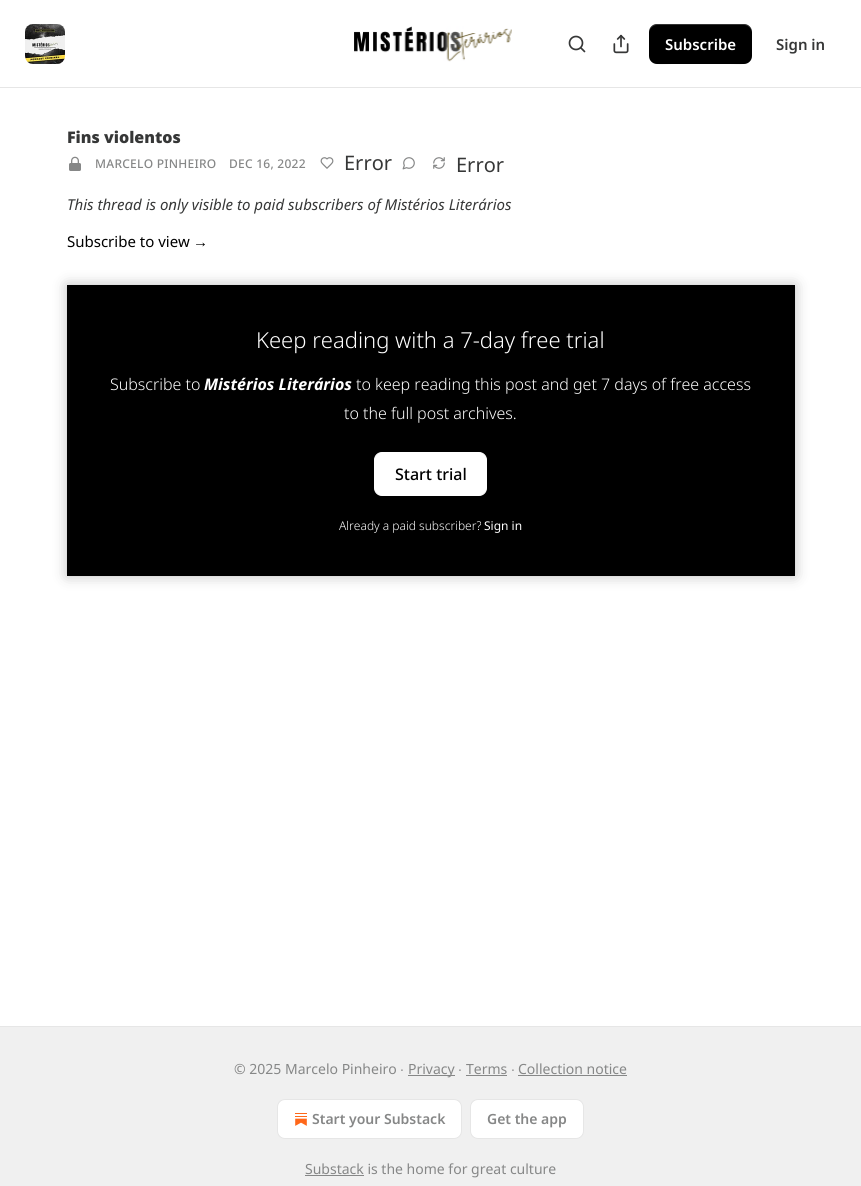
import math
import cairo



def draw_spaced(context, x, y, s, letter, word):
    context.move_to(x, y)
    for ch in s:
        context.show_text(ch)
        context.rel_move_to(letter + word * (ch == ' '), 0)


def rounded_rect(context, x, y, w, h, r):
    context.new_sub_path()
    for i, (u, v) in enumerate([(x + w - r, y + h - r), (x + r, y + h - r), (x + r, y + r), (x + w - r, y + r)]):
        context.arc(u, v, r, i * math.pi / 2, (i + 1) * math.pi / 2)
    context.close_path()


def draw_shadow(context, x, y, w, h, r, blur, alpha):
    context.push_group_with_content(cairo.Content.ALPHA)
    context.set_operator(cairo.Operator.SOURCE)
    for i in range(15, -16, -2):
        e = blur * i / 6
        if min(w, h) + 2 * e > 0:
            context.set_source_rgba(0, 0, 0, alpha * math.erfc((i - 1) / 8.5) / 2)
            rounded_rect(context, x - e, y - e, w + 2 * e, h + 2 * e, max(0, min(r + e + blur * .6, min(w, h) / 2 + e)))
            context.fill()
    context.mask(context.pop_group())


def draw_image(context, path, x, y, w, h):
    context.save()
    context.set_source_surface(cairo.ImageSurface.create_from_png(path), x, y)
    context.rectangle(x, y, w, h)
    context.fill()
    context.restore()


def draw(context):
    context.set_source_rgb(1, 1, 1)
    context.paint()
    context.set_source_rgb(230 / 255, 230 / 255, 230 / 255)
    context.rectangle(0, 87, 861, 1)
    context.fill()
    draw_image(context, "images/1.png", 25, 24, 40, 40)
    draw_image(context, "images/2.png", 354, 26, 158, 36)
    context.arc(576, 43, 6.5, 0, 2 * math.pi)
    context.set_source_rgb(54 / 255, 55 / 255, 55 / 255)
    context.set_line_width(1.7)
    context.stroke()
    context.new_path()
    context.move_to(584.5, 51.5)
    context.line_to(581, 48)
    context.set_line_cap(cairo.LineCap.ROUND)
    context.set_line_join(cairo.LineJoin.ROUND)
    context.stroke()
    draw_image(context, "images/3.png", 613, 34, 16, 20)
    context.set_source_rgb(0, 0, 0)
    rounded_rect(context, 649, 24, 103, 40, 8)
    context.fill()
    context.set_source_rgba(0, 0, 0, 0.1)
    context.new_path()
    context.move_to(649, 55)
    context.curve_to(649, 67, 663, 64, 672, 64)
    context.line_to(730, 64)
    context.curve_to(738, 64, 752, 67, 752, 55)
    context.curve_to(752, 59, 748, 63, 744, 63)
    context.line_to(657, 63)
    context.curve_to(653, 63, 649, 59, 649, 55)
    context.close_path()
    context.fill()
    context.set_source_rgba(1, 1, 1, 0.2)
    context.new_path()
    context.move_to(657, 25)
    context.line_to(744, 25)
    context.curve_to(748, 25, 752, 29, 752, 33)
    context.curve_to(752, 21, 738, 24, 730, 24)
    context.line_to(672, 24)
    context.curve_to(663, 24, 649, 21, 649, 33)
    context.curve_to(649, 29, 653, 25, 657, 25)
    context.close_path()
    context.fill()
    draw_image(context, "images/4.png", 69, 156, 12, 15)
    draw_image(context, "images/5.png", 320, 157, 14, 12)
    draw_image(context, "images/6.png", 402, 157, 13, 13)
    draw_image(context, "images/7.png", 433, 157, 12, 12)
    context.set_source_rgb(0, 0, 0)
    context.rectangle(67, 285, 728, 291)
    context.fill()
    context.set_source_rgb(1, 1, 1)
    rounded_rect(context, 374.5, 452.5, 112, 43, 7.5)
    context.fill_preserve()
    context.set_line_width(1)
    context.set_line_cap(cairo.LineCap.BUTT)
    context.set_line_join(cairo.LineJoin.MITER)
    context.stroke()
    context.save()
    context.set_fill_rule(cairo.FillRule.EVEN_ODD)
    context.new_path()
    context.move_to(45, 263)
    context.line_to(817, 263)
    context.line_to(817, 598)
    context.line_to(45, 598)
    context.close_path()
    context.move_to(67, 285)
    context.line_to(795, 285)
    context.line_to(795, 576)
    context.line_to(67, 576)
    context.close_path()
    context.clip()
    context.set_source_rgb(0, 0, 0)
    draw_shadow(context, 67, 285, 728, 291, 0, 7, 0.25)
    context.restore()
    context.set_source_rgb(240 / 255, 240 / 255, 240 / 255)
    context.rectangle(0, 1027, 861, 159)
    context.fill()
    context.set_source_rgb(230 / 255, 230 / 255, 230 / 255)
    context.rectangle(0, 1026, 861, 1)
    context.fill()
    context.set_source_rgb(134 / 255, 135 / 255, 135 / 255)
    context.rectangle(408, 1075, 47, 1)
    context.fill()
    context.rectangle(466, 1075, 41, 1)
    context.fill()
    context.rectangle(518, 1075, 109, 1)
    context.fill()
    context.set_source_rgb(1, 1, 1)
    rounded_rect(context, 277.5, 1099.5, 184, 39, 7.5)
    context.fill_preserve()
    context.set_source_rgb(230 / 255, 230 / 255, 230 / 255)
    context.stroke()
    draw_image(context, "images/8.png", 295, 1113, 12, 13)
    context.set_source_rgb(1, 1, 1)
    rounded_rect(context, 470.5, 1099.5, 113, 39, 7.5)
    context.fill_preserve()
    context.set_source_rgb(230 / 255, 230 / 255, 230 / 255)
    context.stroke()
    context.set_source_rgb(134 / 255, 135 / 255, 135 / 255)
    context.rectangle(305, 1175, 59, 1)
    context.fill()
    context.select_font_face("Noto Sans SemiBold")
    context.set_font_size(15)
    context.set_source_rgb(1, 1, 1)
    context.move_to(665, 50)
    context.show_text("Subscribe")
    context.set_source_rgb(54 / 255, 55 / 255, 55 / 255)
    context.move_to(776, 50)
    context.show_text("Sign in")
    context.select_font_face("Noto Sans Black")
    context.set_font_size(16)
    context.move_to(67, 143)
    context.show_text("Fins violentos")
    context.select_font_face("Noto Sans Medium")
    context.set_font_size(12)
    context.set_source_rgb(134 / 255, 135 / 255, 135 / 255)
    draw_spaced(context, 95, 168, "MARCELO PINHEIRO", 0.25, 0)
    draw_spaced(context, 229, 168, "DEC 16, 2022", 0.25, 0)
    context.select_font_face("Noto Sans")
    context.set_font_size(20)
    context.set_source_rgb(54 / 255, 55 / 255, 55 / 255)
    context.move_to(344, 170)
    context.show_text("Error")
    context.move_to(456, 172)
    context.show_text("Error")
    context.select_font_face("Noto Sans", cairo.FontSlant.ITALIC)
    context.set_font_size(15)
    context.move_to(67, 210)
    context.show_text("This thread is only visible to paid subscribers of Mistérios Literários")
    context.select_font_face("Noto Sans")
    context.set_source_rgb(0, 0, 0)
    context.move_to(67, 247)
    context.show_text("Subscribe to view")
    context.select_font_face("Liberation Sans")
    context.move_to(193, 247)
    context.show_text("→")
    context.select_font_face("Noto Sans Light")
    context.set_font_size(22)
    context.set_source_rgb(1, 1, 1)
    context.move_to(256, 348)
    context.show_text("Keep reading with a 7-day free trial")
    context.set_font_size(16)
    context.move_to(110, 390)
    context.show_text("Subscribe to")
    context.select_font_face("Noto Sans", cairo.FontSlant.ITALIC, cairo.FontWeight.BOLD)
    context.move_to(204, 390)
    context.show_text("Mistérios Literários")
    context.select_font_face("Noto Sans Light")
    context.move_to(356, 390)
    context.show_text("to keep reading this post and get 7 days of free access")
    context.move_to(344, 419)
    context.show_text("to the full post archives.")
    context.select_font_face("Noto Sans Medium")
    context.set_source_rgb(0, 0, 0)
    context.move_to(395, 480)
    context.show_text("Start trial")
    context.select_font_face("Noto Sans Light")
    context.set_font_size(12)
    context.set_source_rgb(1, 1, 1)
    context.move_to(339, 530)
    context.show_text("Already a paid subscriber?")
    context.select_font_face("Noto Sans")
    context.move_to(484, 530)
    context.show_text("Sign in")
    context.set_font_size(14)
    context.set_source_rgb(134 / 255, 135 / 255, 135 / 255)
    context.move_to(234, 1074)
    context.show_text("© 2025 Marcelo Pinheiro")
    context.select_font_face("Liberation Sans")
    context.move_to(400, 1074)
    context.show_text("∙")
    context.select_font_face("Noto Sans")
    context.move_to(408, 1074)
    context.show_text("Privacy")
    context.select_font_face("Liberation Sans")
    context.move_to(458, 1074)
    context.show_text("∙")
    context.select_font_face("Noto Sans")
    context.move_to(466, 1074)
    context.show_text("Terms")
    context.select_font_face("Liberation Sans")
    context.move_to(511, 1074)
    context.show_text("∙")
    context.select_font_face("Noto Sans")
    context.move_to(518, 1074)
    context.show_text("Collection notice")
    context.select_font_face("Noto Sans SemiBold")
    context.move_to(312, 1124)
    context.show_text("Start your Substack")
    context.move_to(487, 1124)
    context.show_text("Get the app")
    context.select_font_face("Noto Sans")
    context.move_to(305, 1174)
    context.show_text("Substack is the home for great culture")


surface = cairo.ImageSurface(cairo.Format.RGB24, 861, 1186)
context = cairo.Context(surface)
options = cairo.FontOptions()
options.set_hint_metrics(cairo.HintMetrics.OFF)
options.set_hint_style(cairo.HintStyle.NONE)
context.set_font_options(options)
context.set_miter_limit(4)
draw(context)
surface.write_to_png("out.png")
